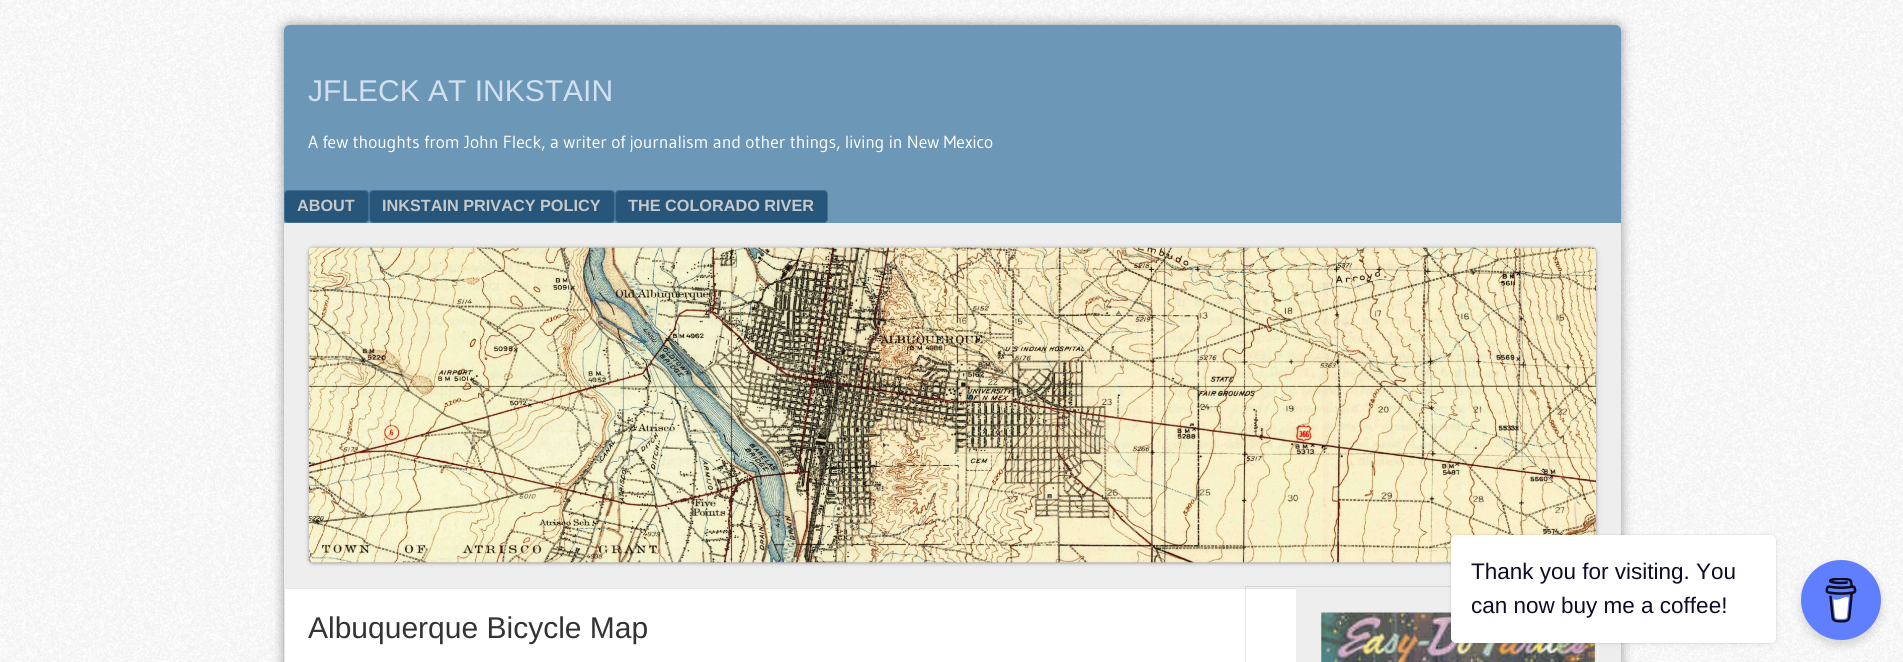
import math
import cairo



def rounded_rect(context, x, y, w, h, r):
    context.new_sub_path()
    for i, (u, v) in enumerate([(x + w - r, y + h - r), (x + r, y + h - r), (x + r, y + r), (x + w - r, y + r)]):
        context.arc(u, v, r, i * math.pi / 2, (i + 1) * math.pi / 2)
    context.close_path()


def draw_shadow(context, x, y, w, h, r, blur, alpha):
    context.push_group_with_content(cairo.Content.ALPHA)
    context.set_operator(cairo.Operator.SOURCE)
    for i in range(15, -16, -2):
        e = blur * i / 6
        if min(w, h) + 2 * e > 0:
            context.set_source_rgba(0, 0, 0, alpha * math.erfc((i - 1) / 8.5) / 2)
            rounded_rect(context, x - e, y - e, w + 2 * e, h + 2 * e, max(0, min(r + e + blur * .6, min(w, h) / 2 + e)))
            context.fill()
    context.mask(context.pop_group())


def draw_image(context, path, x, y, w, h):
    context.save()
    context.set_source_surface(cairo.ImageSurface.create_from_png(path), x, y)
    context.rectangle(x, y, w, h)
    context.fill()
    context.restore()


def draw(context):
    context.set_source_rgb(1, 1, 1)
    context.paint()
    draw_image(context, "images/1.png", 0, 0, 1903, 662)
    context.set_source_rgb(0, 0, 0)
    draw_shadow(context, 284, 25, 1337, 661, 6, 6, 0.4)
    context.set_source_rgb(109 / 255, 151 / 255, 183 / 255)
    context.new_path()
    context.move_to(290, 25)
    context.line_to(1615, 25)
    context.curve_to(1618.5, 25, 1621, 27.5, 1621, 31)
    context.line_to(1621, 588)
    context.line_to(284, 588)
    context.line_to(284, 31)
    context.curve_to(284, 27.5, 286.5, 25, 290, 25)
    context.close_path()
    context.fill()
    context.set_source_rgb(39 / 255, 86 / 255, 122 / 255)
    rounded_rect(context, 284.5, 190.5, 84, 32, 3.5)
    context.fill_preserve()
    context.set_source_rgb(65 / 255, 113 / 255, 150 / 255)
    context.set_line_width(1)
    context.stroke()
    context.set_source_rgb(39 / 255, 86 / 255, 122 / 255)
    rounded_rect(context, 369.5, 190.5, 245, 32, 3.5)
    context.fill_preserve()
    context.set_source_rgb(65 / 255, 113 / 255, 150 / 255)
    context.stroke()
    context.set_source_rgb(39 / 255, 86 / 255, 122 / 255)
    rounded_rect(context, 615.5, 190.5, 212, 32, 3.5)
    context.fill_preserve()
    context.set_source_rgb(65 / 255, 113 / 255, 150 / 255)
    context.stroke()
    context.set_source_rgb(238 / 255, 238 / 255, 238 / 255)
    context.rectangle(284, 223, 1337, 365)
    context.fill()
    context.set_source_rgb(0, 0, 0)
    draw_shadow(context, 309, 248, 1287, 315, 4, 2, 0.4)
    draw_image(context, "images/2.png", 308, 247, 1289, 316)
    context.set_source_rgb(1, 1, 1)
    context.rectangle(285, 589, 1011, 73)
    context.fill()
    context.rectangle(284.5, 588.5, 1336, 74)
    context.set_source_rgb(230 / 255, 230 / 255, 230 / 255)
    context.stroke()
    context.set_source_rgba(0, 0, 0, 0.1)
    context.new_path()
    context.move_to(1245, 586)
    context.line_to(1245, 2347)
    context.curve_to(1245, 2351, 1249, 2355, 1253, 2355)
    context.line_to(1621, 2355)
    context.line_to(1621, 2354)
    context.line_to(1253, 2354)
    context.curve_to(1249, 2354, 1246, 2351, 1246, 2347)
    context.line_to(1246, 587)
    context.line_to(1621, 587)
    context.line_to(1621, 586)
    context.close_path()
    context.fill()
    context.set_source_rgb(238 / 255, 238 / 255, 238 / 255)
    context.rectangle(1296, 588, 325, 74)
    context.fill()
    draw_image(context, "images/3.png", 1321, 612, 276, 50)
    context.set_source_rgb(0, 0, 0)
    draw_shadow(context, 1451, 535, 325, 108, 5, 1, 0.15)
    draw_shadow(context, 1451, 538, 325, 107, 5, 3, 0.05)
    context.set_source_rgb(1, 1, 1)
    rounded_rect(context, 1451, 535, 325, 108, 5)
    context.fill()
    context.set_source_rgb(0, 0, 0)
    draw_shadow(context, 1801, 565, 80, 80, 40, 5, 0.15)
    context.set_source_rgb(95 / 255, 127 / 255, 1)
    context.arc(1841, 600, 40, 0, 2 * math.pi)
    context.fill()
    draw_image(context, "images/4.png", 1825, 578, 32, 45)
    context.select_font_face("Liberation Sans")
    context.set_font_size(30)
    context.set_source_rgb(208 / 255, 224 / 255, 240 / 255)
    context.move_to(308, 101)
    context.show_text("JFLECK AT INKSTAIN")
    context.select_font_face("Gudea")
    context.set_font_size(17.5)
    context.set_source_rgb(1, 1, 1)
    context.move_to(308, 148)
    context.show_text("A few thoughts from John Fleck, a writer of journalism and other things, living in New Mexico")
    context.select_font_face("Liberation Sans", cairo.FontSlant.NORMAL, cairo.FontWeight.BOLD)
    context.set_font_size(16.25)
    context.set_source_rgb(198 / 255, 200 / 255, 201 / 255)
    context.move_to(297, 211)
    context.show_text("ABOUT")
    context.move_to(382, 211)
    context.show_text("INKSTAIN PRIVACY POLICY")
    context.move_to(628, 211)
    context.show_text("THE COLORADO RIVER")
    context.select_font_face("Liberation Sans")
    context.set_font_size(30)
    context.set_source_rgb(51 / 255, 51 / 255, 51 / 255)
    context.move_to(308, 638)
    context.show_text("Albuquerque Bicycle Map")
    context.set_font_size(22.5)
    context.set_source_rgb(13 / 255, 12 / 255, 34 / 255)
    context.move_to(1471, 579)
    context.show_text("Thank you for visiting. You")
    context.move_to(1471, 613)
    context.show_text("can now buy me a coffee!")


surface = cairo.ImageSurface(cairo.Format.RGB24, 1903, 662)
context = cairo.Context(surface)
options = cairo.FontOptions()
options.set_hint_metrics(cairo.HintMetrics.OFF)
options.set_hint_style(cairo.HintStyle.NONE)
context.set_font_options(options)
context.set_miter_limit(4)
draw(context)
surface.write_to_png("out.png")
